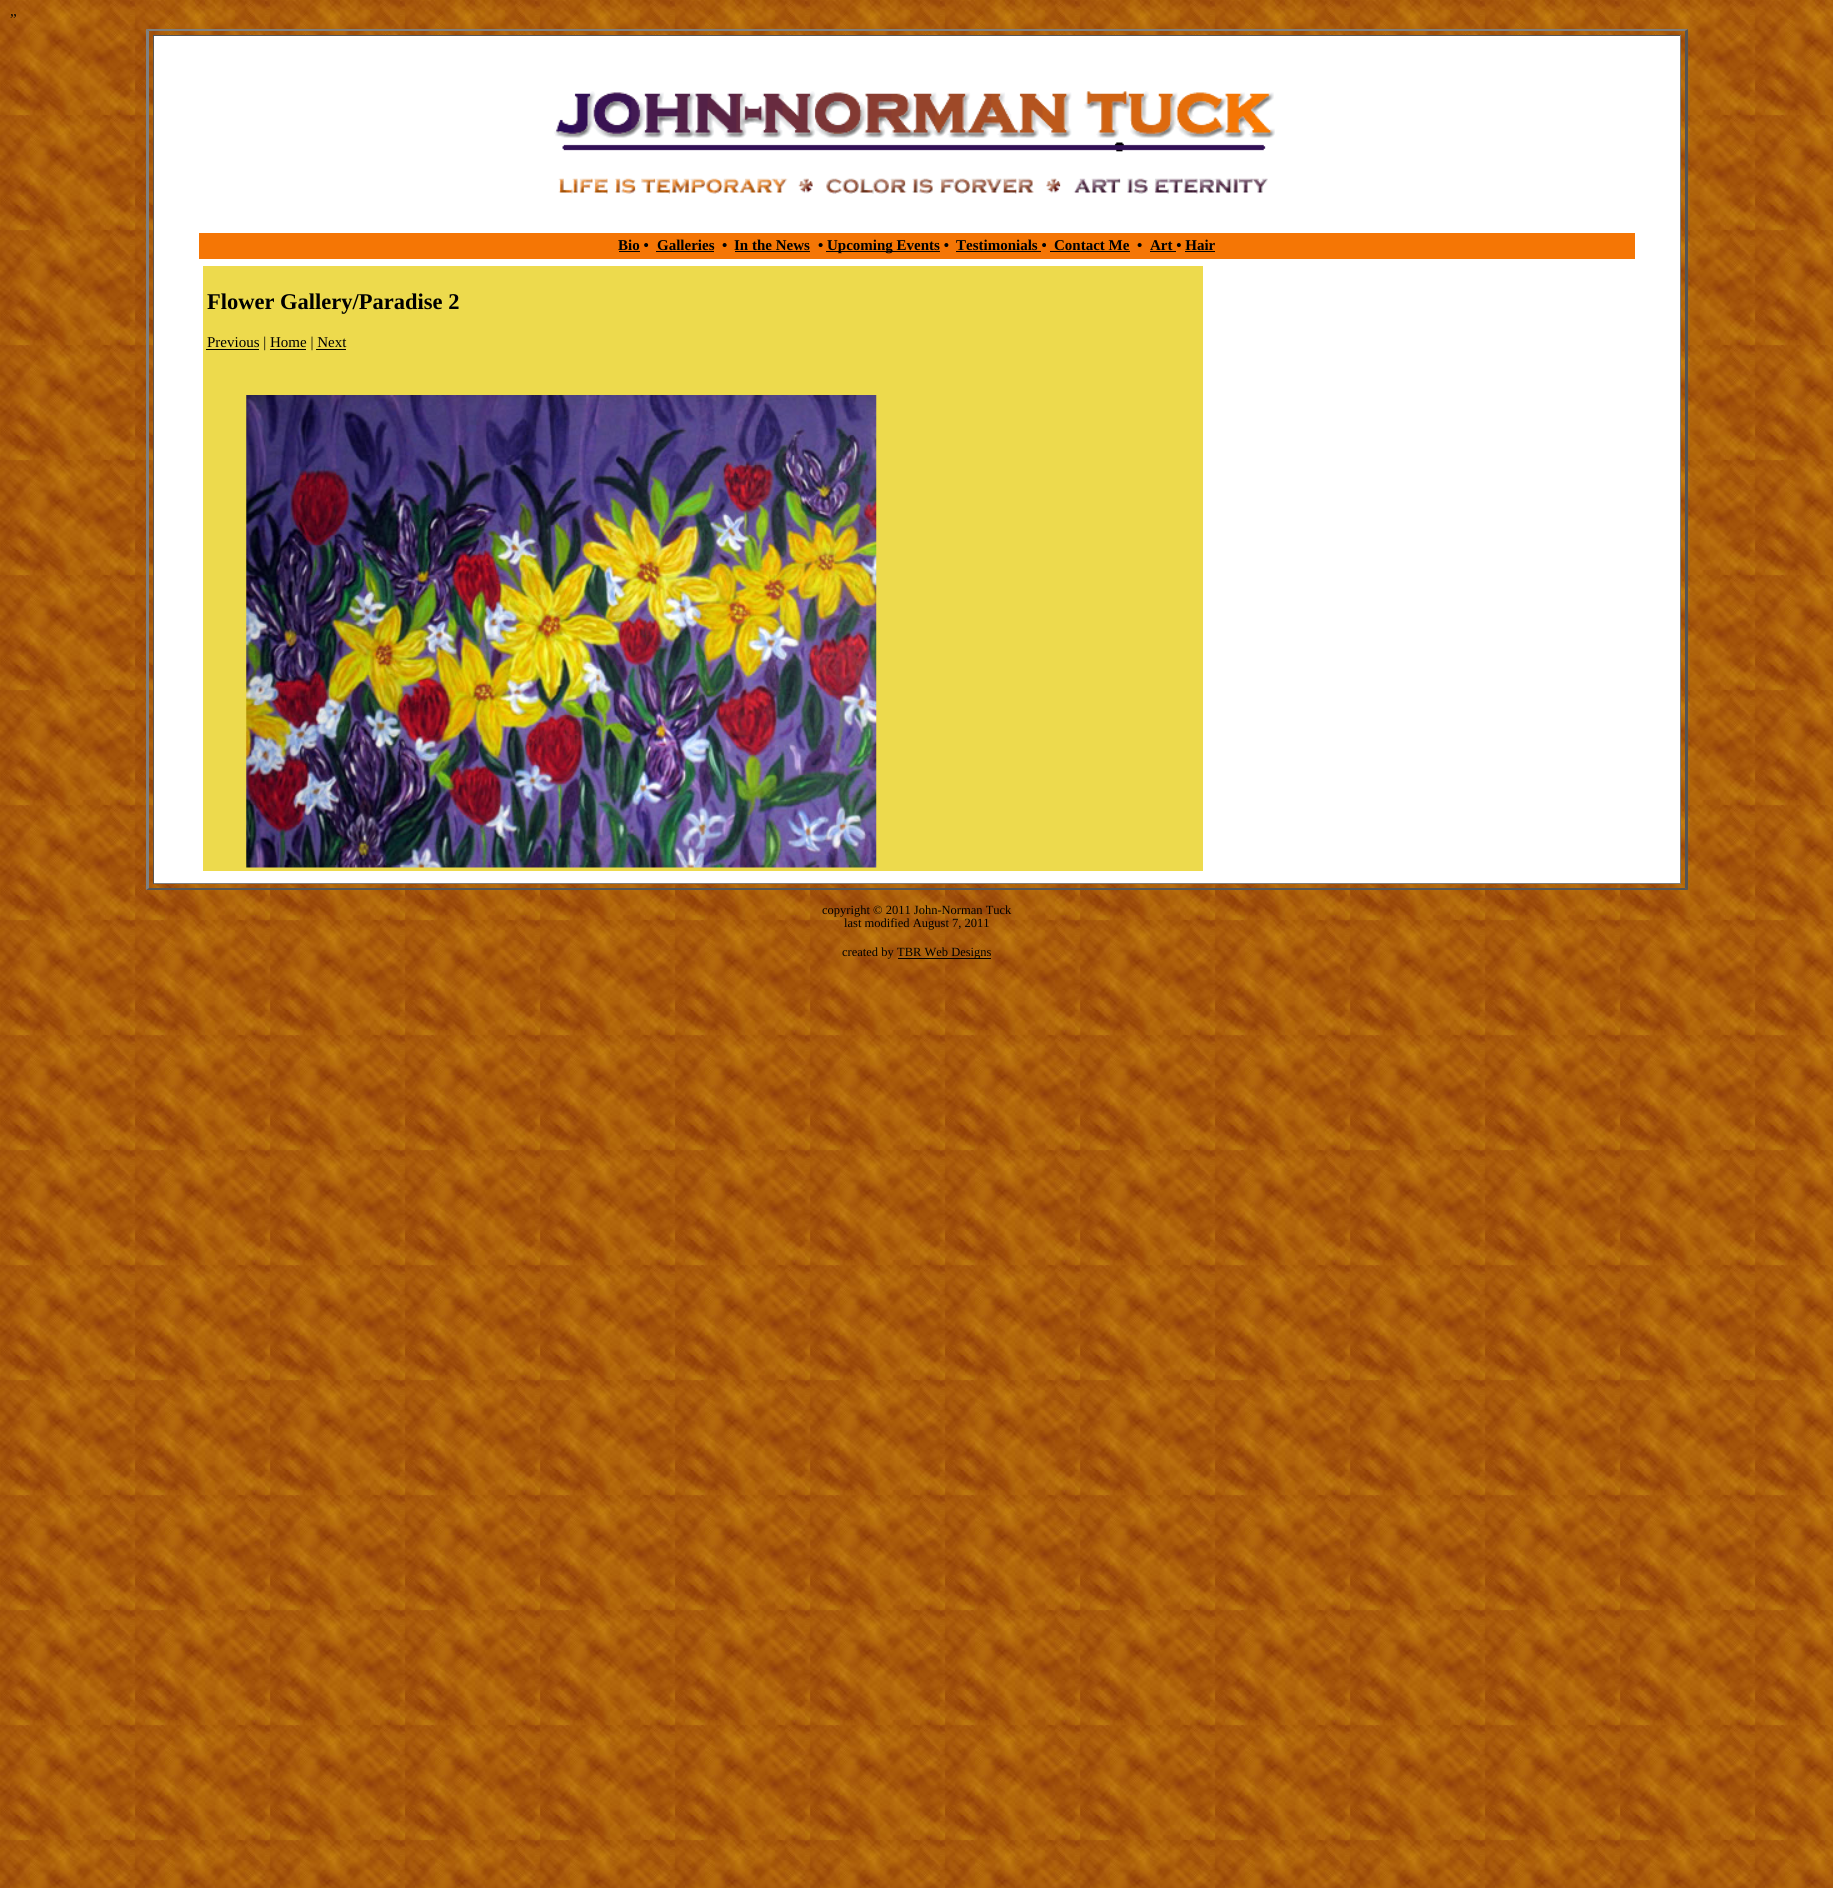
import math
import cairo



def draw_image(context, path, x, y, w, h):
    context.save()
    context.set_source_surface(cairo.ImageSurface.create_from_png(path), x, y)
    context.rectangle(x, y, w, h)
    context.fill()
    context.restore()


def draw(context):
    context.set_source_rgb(1, 1, 1)
    context.paint()
    draw_image(context, "images/1.png", 0, 0, 1833, 1888)
    context.set_source_rgb(128 / 255, 128 / 255, 128 / 255)
    context.new_path()
    context.move_to(146, 29)
    context.line_to(1688, 29)
    context.line_to(1685, 31)
    context.line_to(149, 31)
    context.close_path()
    context.fill()
    context.set_source_rgb(85 / 255, 85 / 255, 85 / 255)
    context.new_path()
    context.move_to(1688, 29)
    context.line_to(1688, 890)
    context.line_to(1685, 888)
    context.line_to(1685, 31)
    context.close_path()
    context.fill()
    context.new_path()
    context.move_to(1688, 890)
    context.line_to(146, 890)
    context.line_to(149, 888)
    context.line_to(1685, 888)
    context.close_path()
    context.fill()
    context.set_source_rgb(128 / 255, 128 / 255, 128 / 255)
    context.new_path()
    context.move_to(146, 890)
    context.line_to(146, 29)
    context.line_to(149, 31)
    context.line_to(149, 888)
    context.close_path()
    context.fill()
    context.set_source_rgb(1, 1, 1)
    context.rectangle(154, 36, 1526, 847)
    context.fill()
    context.set_source_rgb(85 / 255, 85 / 255, 85 / 255)
    context.rectangle(153, 35, 1528, 1)
    context.fill()
    context.set_source_rgb(128 / 255, 128 / 255, 128 / 255)
    context.rectangle(1680, 35, 1, 849)
    context.fill()
    context.rectangle(153, 883, 1528, 1)
    context.fill()
    context.set_source_rgb(85 / 255, 85 / 255, 85 / 255)
    context.rectangle(153, 35, 1, 849)
    context.fill()
    draw_image(context, "images/2.png", 554, 91, 721, 103)
    context.set_source_rgb(245 / 255, 118 / 255, 5 / 255)
    context.rectangle(199, 233, 1436, 26)
    context.fill()
    context.set_source_rgb(0, 0, 0)
    context.rectangle(619, 251, 21, 1)
    context.fill()
    context.rectangle(656, 251, 58, 1)
    context.fill()
    context.rectangle(735, 251, 75, 1)
    context.fill()
    context.rectangle(826, 251, 114, 1)
    context.fill()
    context.rectangle(956, 251, 85, 1)
    context.fill()
    context.rectangle(1050, 251, 80, 1)
    context.fill()
    context.rectangle(1150, 251, 26, 1)
    context.fill()
    context.rectangle(1185, 251, 30, 1)
    context.fill()
    context.set_source_rgb(237 / 255, 218 / 255, 77 / 255)
    context.rectangle(203, 266, 1000, 605)
    context.fill()
    context.set_source_rgb(0, 0, 0)
    context.rectangle(206, 349, 53, 1)
    context.fill()
    context.rectangle(270, 349, 36, 1)
    context.fill()
    context.rectangle(316, 349, 30, 1)
    context.fill()
    draw_image(context, "images/3.png", 246, 395, 631, 473)
    context.rectangle(898, 958, 93, 1)
    context.fill()
    context.select_font_face("Liberation Serif")
    context.set_font_size(15)
    context.move_to(10, 24)
    context.show_text("”")
    context.select_font_face("Liberation Serif", cairo.FontSlant.NORMAL, cairo.FontWeight.BOLD)
    context.move_to(618, 250)
    context.show_text("Bio •")
    context.move_to(657, 250)
    context.show_text("Galleries")
    context.move_to(722, 250)
    context.show_text("•")
    context.move_to(734, 250)
    context.show_text("In the News")
    context.move_to(818, 250)
    context.show_text("•")
    context.move_to(827, 250)
    context.show_text("Upcoming Events •")
    context.move_to(956, 250)
    context.show_text("Testimonials •")
    context.move_to(1054, 250)
    context.show_text("Contact Me")
    context.move_to(1137, 250)
    context.show_text("•")
    context.move_to(1150, 250)
    context.show_text("Art • Hair")
    context.set_font_size(22.5)
    context.move_to(207, 309)
    context.show_text("Flower Gallery/Paradise 2")
    context.select_font_face("Liberation Serif")
    context.set_font_size(15)
    context.move_to(207, 347)
    context.show_text("Previous | Home | Next")
    context.set_font_size(12.5)
    context.move_to(822, 914)
    context.show_text("copyright © 2011 John-Norman Tuck")
    context.move_to(844, 927)
    context.show_text("last modified August 7, 2011")
    context.move_to(842, 956)
    context.show_text("created by")
    context.move_to(897, 956)
    context.show_text("TBR Web Designs")


surface = cairo.ImageSurface(cairo.Format.RGB24, 1833, 1888)
context = cairo.Context(surface)
options = cairo.FontOptions()
options.set_hint_metrics(cairo.HintMetrics.OFF)
options.set_hint_style(cairo.HintStyle.NONE)
context.set_font_options(options)
context.set_miter_limit(4)
draw(context)
surface.write_to_png("out.png")
